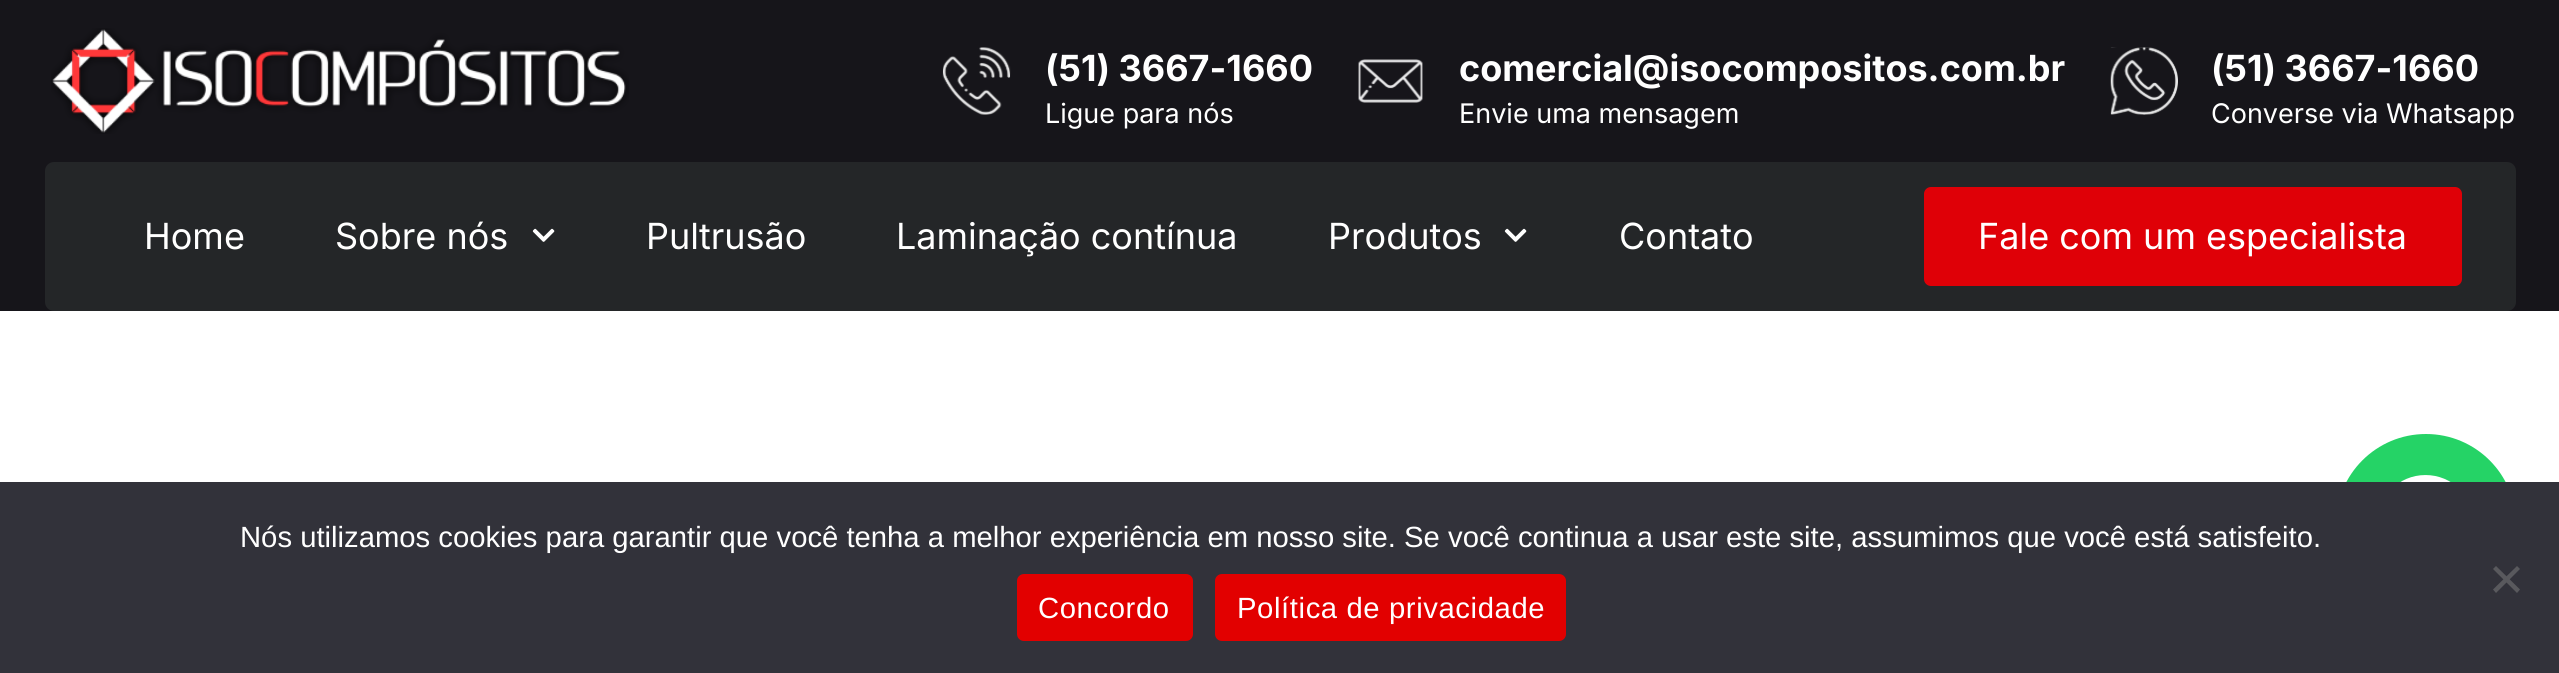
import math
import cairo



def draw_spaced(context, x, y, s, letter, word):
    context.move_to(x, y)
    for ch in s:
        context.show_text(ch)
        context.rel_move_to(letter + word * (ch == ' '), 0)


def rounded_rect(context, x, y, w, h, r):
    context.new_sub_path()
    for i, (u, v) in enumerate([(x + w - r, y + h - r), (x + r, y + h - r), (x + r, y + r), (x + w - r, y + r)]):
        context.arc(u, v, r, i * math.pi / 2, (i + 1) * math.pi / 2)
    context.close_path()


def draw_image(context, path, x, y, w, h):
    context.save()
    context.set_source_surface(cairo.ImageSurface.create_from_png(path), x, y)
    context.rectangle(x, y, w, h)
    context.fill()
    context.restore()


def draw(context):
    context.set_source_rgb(1, 1, 1)
    context.paint()
    context.set_source_rgb(22 / 255, 21 / 255, 26 / 255)
    context.rectangle(0, 0, 2559, 311)
    context.fill()
    draw_image(context, "images/1.png", 51, 28, 578, 106)
    draw_image(context, "images/2.png", 942, 47, 69, 68)
    draw_image(context, "images/3.png", 1358, 59, 65, 44)
    draw_image(context, "images/4.png", 2110, 47, 68, 68)
    context.set_source_rgb(36 / 255, 38 / 255, 40 / 255)
    rounded_rect(context, 45, 162, 2471, 149, 9)
    context.fill()
    draw_image(context, "images/5.png", 532, 228, 23, 14)
    draw_image(context, "images/5.png", 1504, 228, 23, 14)
    context.set_source_rgb(223 / 255, 0, 7 / 255)
    rounded_rect(context, 1924, 187, 538, 99, 7)
    context.fill()
    context.set_source_rgb(37 / 255, 211 / 255, 102 / 255)
    context.arc(2426, 524, 90, 0, 2 * math.pi)
    context.fill()
    context.set_source_rgb(50 / 255, 50 / 255, 58 / 255)
    context.rectangle(0, 482, 2559, 191)
    context.fill()
    context.set_source_rgb(89 / 255, 89 / 255, 93 / 255)
    context.new_path()
    context.move_to(2517, 566)
    context.line_to(2520, 569)
    context.line_to(2496, 593)
    context.line_to(2493, 589.5)
    context.close_path()
    context.fill()
    context.new_path()
    context.move_to(2493, 569)
    context.line_to(2496, 566)
    context.line_to(2520, 589.5)
    context.line_to(2517, 593)
    context.close_path()
    context.fill()
    context.set_source_rgb(226 / 255, 0, 0)
    rounded_rect(context, 1017, 574, 176, 67, 7)
    context.fill()
    rounded_rect(context, 1215, 574, 351, 67, 7)
    context.fill()
    draw_image(context, "images/6.png", 2400, 475, 51, 7)
    context.select_font_face("Inter", cairo.FontSlant.NORMAL, cairo.FontWeight.BOLD)
    context.set_font_size(36)
    context.set_source_rgb(1, 1, 1)
    context.move_to(1045, 81)
    context.show_text("(51) 3667-1660")
    context.select_font_face("Inter")
    context.set_font_size(27)
    context.move_to(1045, 123)
    context.show_text("Ligue para nós")
    context.select_font_face("Inter", cairo.FontSlant.NORMAL, cairo.FontWeight.BOLD)
    context.set_font_size(36)
    context.move_to(1459, 81)
    context.show_text("comercial@isocompositos.com.br")
    context.select_font_face("Inter")
    context.set_font_size(27)
    context.move_to(1459, 123)
    context.show_text("Envie uma mensagem")
    context.select_font_face("Inter", cairo.FontSlant.NORMAL, cairo.FontWeight.BOLD)
    context.set_font_size(36)
    context.move_to(2211, 81)
    context.show_text("(51) 3667-1660")
    context.select_font_face("Inter")
    context.set_font_size(27)
    context.move_to(2211, 123)
    context.show_text("Converse via Whatsapp")
    context.set_font_size(36)
    context.move_to(144, 249)
    context.show_text("Home")
    context.move_to(335, 249)
    context.show_text("Sobre nós")
    context.move_to(646, 249)
    context.show_text("Pultrusão")
    context.move_to(896, 249)
    context.show_text("Laminação contínua")
    context.move_to(1328, 249)
    context.show_text("Produtos")
    context.move_to(1619, 249)
    context.show_text("Contato")
    context.move_to(1978, 249)
    context.show_text("Fale com um especialista")
    context.select_font_face("Liberation Sans")
    context.set_font_size(29.25)
    context.move_to(240, 547)
    context.show_text("Nós utilizamos cookies para garantir que você tenha a melhor experiência em nosso site. Se você continua a usar este site, assumimos que você está satisfeito.")
    draw_spaced(context, 1038, 618, "Concordo", 0.6, 0)
    draw_spaced(context, 1237, 618, "Política de privacidade", 0.6, 0)


surface = cairo.ImageSurface(cairo.Format.RGB24, 2559, 673)
context = cairo.Context(surface)
options = cairo.FontOptions()
options.set_hint_metrics(cairo.HintMetrics.OFF)
options.set_hint_style(cairo.HintStyle.NONE)
context.set_font_options(options)
context.set_miter_limit(4)
draw(context)
surface.write_to_png("out.png")
